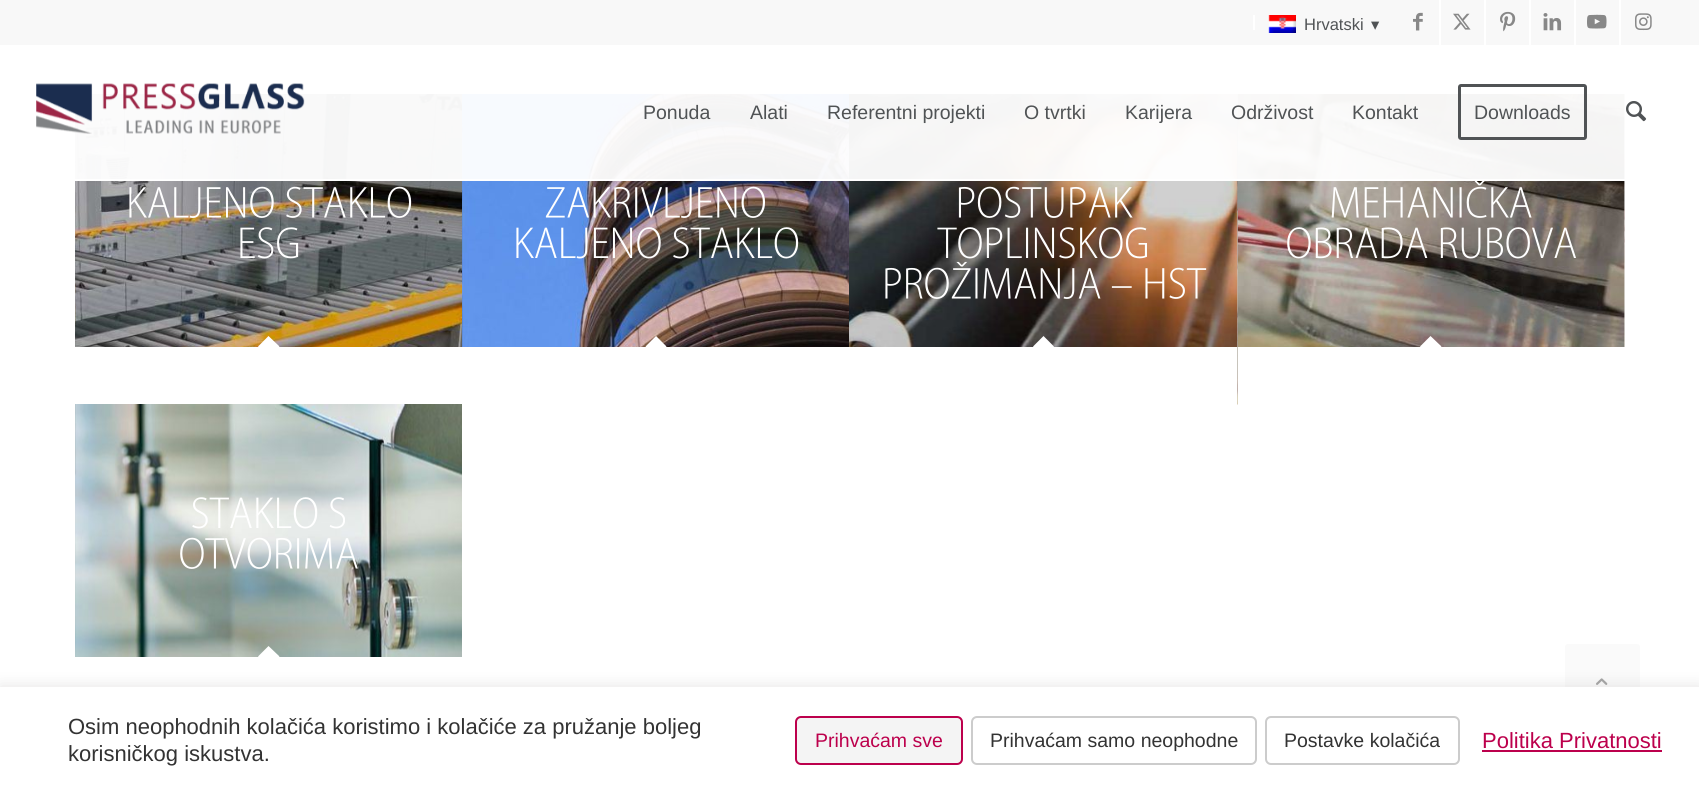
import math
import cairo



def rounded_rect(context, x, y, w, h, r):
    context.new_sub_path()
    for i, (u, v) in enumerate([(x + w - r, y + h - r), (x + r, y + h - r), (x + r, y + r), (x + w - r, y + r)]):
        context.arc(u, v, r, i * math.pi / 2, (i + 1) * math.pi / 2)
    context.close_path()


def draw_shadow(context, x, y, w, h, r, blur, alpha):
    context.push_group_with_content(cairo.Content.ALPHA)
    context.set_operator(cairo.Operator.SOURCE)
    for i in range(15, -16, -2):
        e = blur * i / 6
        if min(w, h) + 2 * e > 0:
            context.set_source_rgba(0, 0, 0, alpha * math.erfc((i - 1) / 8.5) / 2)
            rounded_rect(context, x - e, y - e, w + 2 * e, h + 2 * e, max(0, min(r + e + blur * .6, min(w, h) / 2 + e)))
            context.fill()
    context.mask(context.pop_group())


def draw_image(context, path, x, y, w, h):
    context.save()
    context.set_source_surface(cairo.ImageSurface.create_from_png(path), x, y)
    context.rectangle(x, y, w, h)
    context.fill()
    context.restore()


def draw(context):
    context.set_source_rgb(1, 1, 1)
    context.paint()
    context.set_source_rgb(248 / 255, 248 / 255, 248 / 255)
    context.rectangle(0, 0, 1699, 45)
    context.fill()
    context.set_source_rgb(1, 1, 1)
    context.rectangle(1253, 15, 2, 15)
    context.fill()
    draw_image(context, "images/1.png", 1268, 15, 28, 18)
    context.rectangle(1439, 0, 2, 45)
    context.fill()
    draw_image(context, "images/2.png", 1413, 12, 10, 19)
    context.rectangle(1484, 0, 2, 45)
    context.fill()
    draw_image(context, "images/3.png", 1453, 13, 18, 17)
    context.rectangle(1529, 0, 2, 45)
    context.fill()
    draw_image(context, "images/4.png", 1500, 11, 16, 21)
    context.rectangle(1574, 0, 2, 45)
    context.fill()
    draw_image(context, "images/5.png", 1543, 13, 19, 18)
    context.rectangle(1619, 0, 2, 45)
    context.fill()
    draw_image(context, "images/6.png", 1587, 14, 20, 15)
    draw_image(context, "images/7.png", 1635, 13, 17, 18)
    draw_image(context, "images/10.png", 75, 94, 387, 253)
    draw_image(context, "images/13.png", 462, 94, 387, 253)
    draw_image(context, "images/16.png", 849, 94, 389, 253)
    draw_image(context, "images/20.png", 1237, 94, 388, 311)
    context.set_source_rgba(1, 1, 1, 0.95)
    context.rectangle(75, 94, 1550, 85)
    context.fill()
    context.set_source_rgb(1, 1, 1)
    context.rectangle(75, 179, 1550, 2)
    context.fill()
    draw_image(context, "images/8.png", 36, 83, 269, 51)
    rounded_rect(context, 1459.5, 85.5, 126, 53, 1.5)
    context.set_source_rgb(80 / 255, 83 / 255, 85 / 255)
    context.set_line_width(3)
    context.stroke()
    draw_image(context, "images/9.png", 1626, 101, 21, 21)
    draw_image(context, "images/11.png", 129, 186, 283, 32)
    draw_image(context, "images/12.png", 240, 227, 59, 32)
    context.set_source_rgb(1, 1, 1)
    context.new_path()
    context.move_to(268.5, 336)
    context.line_to(279.5, 346.5)
    context.line_to(268.5, 357)
    context.line_to(258, 346.5)
    context.close_path()
    context.fill()
    draw_image(context, "images/14.png", 545, 186, 220, 32)
    draw_image(context, "images/15.png", 516, 227, 283, 32)
    context.new_path()
    context.move_to(656, 336)
    context.line_to(666.5, 346.5)
    context.line_to(656, 357)
    context.line_to(645.5, 346.5)
    context.close_path()
    context.fill()
    draw_image(context, "images/17.png", 958, 186, 175, 32)
    draw_image(context, "images/18.png", 937, 227, 210, 32)
    draw_image(context, "images/19.png", 885, 261, 322, 38)
    context.new_path()
    context.move_to(1043.5, 336)
    context.line_to(1054, 346.5)
    context.line_to(1043.5, 357)
    context.line_to(1033, 346.5)
    context.close_path()
    context.fill()
    context.rectangle(1238, 347, 387, 58)
    context.fill()
    draw_image(context, "images/21.png", 1331, 181, 201, 37)
    draw_image(context, "images/22.png", 1287, 227, 289, 32)
    context.new_path()
    context.move_to(1430.5, 336)
    context.line_to(1441.5, 346.5)
    context.line_to(1430.5, 357)
    context.line_to(1420, 346.5)
    context.close_path()
    context.fill()
    draw_image(context, "images/23.png", 75, 404, 387, 253)
    draw_image(context, "images/24.png", 192, 497, 153, 32)
    draw_image(context, "images/25.png", 180, 537, 178, 32)
    context.new_path()
    context.move_to(268.5, 646)
    context.line_to(279.5, 656.5)
    context.line_to(268.5, 667)
    context.line_to(258, 656.5)
    context.close_path()
    context.fill()
    context.set_source_rgb(250 / 255, 250 / 255, 250 / 255)
    rounded_rect(context, 1565, 644, 75, 75, 3)
    context.fill()
    draw_image(context, "images/26.png", 1596, 678, 12, 7)
    context.set_source_rgb(172 / 255, 171 / 255, 171 / 255)
    draw_shadow(context, 0, 686, 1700, 106, 0, 7.5, 0.3)
    context.set_source_rgb(1, 1, 1)
    context.rectangle(0, 687, 1699, 106)
    context.fill()
    context.set_source_rgb(244 / 255, 244 / 255, 244 / 255)
    rounded_rect(context, 796, 717, 166, 47, 5)
    context.fill_preserve()
    context.set_source_rgb(188 / 255, 0, 76 / 255)
    context.set_line_width(2)
    context.stroke()
    rounded_rect(context, 972, 717, 284, 47, 5)
    context.set_source_rgb(204 / 255, 204 / 255, 204 / 255)
    context.stroke()
    rounded_rect(context, 1266, 717, 193, 47, 5)
    context.stroke()
    context.set_source_rgb(188 / 255, 0, 76 / 255)
    context.rectangle(1482, 750, 180, 2)
    context.fill()
    context.select_font_face("Liberation Sans")
    context.set_font_size(16.5)
    context.set_source_rgb(80 / 255, 83 / 255, 85 / 255)
    context.move_to(1304, 30)
    context.show_text("Hrvatski")
    context.select_font_face("DejaVu Sans")
    context.move_to(1371, 30)
    context.show_text("▾")
    context.select_font_face("Liberation Sans")
    context.set_font_size(19.5)
    context.move_to(643, 119)
    context.show_text("Ponuda")
    context.move_to(750, 119)
    context.show_text("Alati")
    context.move_to(827, 119)
    context.show_text("Referentni projekti")
    context.move_to(1024, 119)
    context.show_text("O tvrtki")
    context.move_to(1125, 119)
    context.show_text("Karijera")
    context.move_to(1231, 119)
    context.show_text("Održivost")
    context.move_to(1352, 119)
    context.show_text("Kontakt")
    context.move_to(1474, 119)
    context.show_text("Downloads")
    context.set_font_size(22)
    context.set_source_rgb(51 / 255, 51 / 255, 51 / 255)
    context.move_to(68, 734)
    context.show_text("Osim neophodnih kolačića koristimo i kolačiće za pružanje boljeg")
    context.move_to(68, 761)
    context.show_text("korisničkog iskustva.")
    context.set_font_size(19.5)
    context.set_source_rgb(188 / 255, 0, 76 / 255)
    context.move_to(815, 747)
    context.show_text("Prihvaćam sve")
    context.set_source_rgb(51 / 255, 51 / 255, 51 / 255)
    context.move_to(990, 747)
    context.show_text("Prihvaćam samo neophodne")
    context.move_to(1284, 747)
    context.show_text("Postavke kolačića")
    context.set_font_size(22)
    context.set_source_rgb(188 / 255, 0, 76 / 255)
    context.move_to(1482, 748)
    context.show_text("Politika Privatnosti")


surface = cairo.ImageSurface(cairo.Format.RGB24, 1699, 793)
context = cairo.Context(surface)
options = cairo.FontOptions()
options.set_hint_metrics(cairo.HintMetrics.OFF)
options.set_hint_style(cairo.HintStyle.NONE)
context.set_font_options(options)
context.set_miter_limit(4)
draw(context)
surface.write_to_png("out.png")
